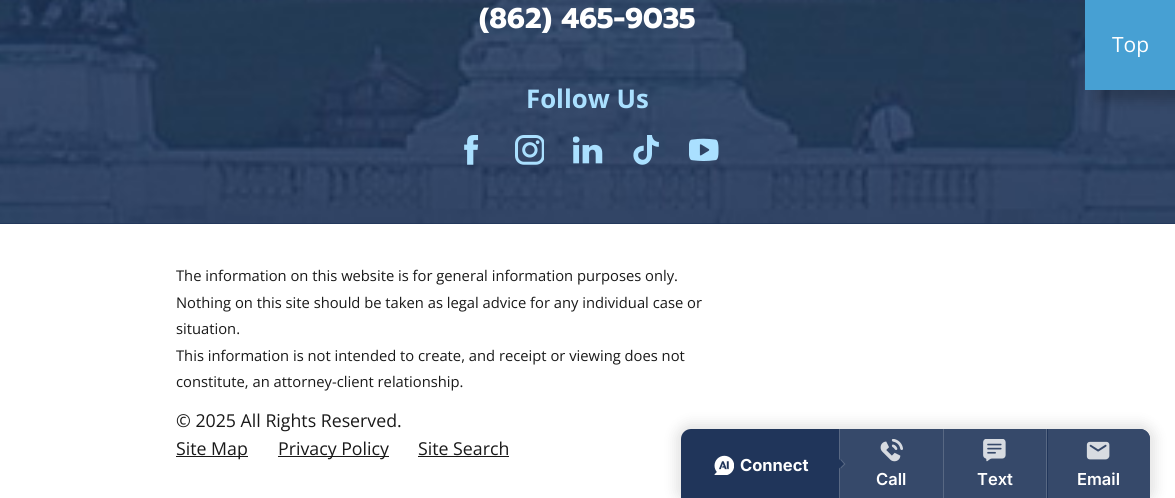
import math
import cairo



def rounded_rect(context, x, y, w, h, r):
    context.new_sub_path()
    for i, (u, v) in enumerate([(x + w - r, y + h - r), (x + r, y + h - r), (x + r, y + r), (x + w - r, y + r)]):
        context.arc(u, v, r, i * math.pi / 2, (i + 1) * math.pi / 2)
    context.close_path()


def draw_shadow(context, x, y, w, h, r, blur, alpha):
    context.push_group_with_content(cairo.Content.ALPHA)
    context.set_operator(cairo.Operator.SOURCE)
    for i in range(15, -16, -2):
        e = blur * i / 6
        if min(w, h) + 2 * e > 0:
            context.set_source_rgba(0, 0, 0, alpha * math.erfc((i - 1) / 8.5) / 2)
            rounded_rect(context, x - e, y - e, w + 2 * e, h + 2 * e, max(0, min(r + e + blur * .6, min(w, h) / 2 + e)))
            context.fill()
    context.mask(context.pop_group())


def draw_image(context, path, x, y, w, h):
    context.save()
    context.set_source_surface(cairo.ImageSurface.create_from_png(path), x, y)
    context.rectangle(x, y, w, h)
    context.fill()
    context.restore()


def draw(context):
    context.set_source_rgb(1, 1, 1)
    context.paint()
    context.set_source_rgb(32 / 255, 53 / 255, 90 / 255)
    context.rectangle(0, 223, 1175, 1)
    context.fill()
    draw_image(context, "images/1.png", 0, 0, 1175, 224)
    draw_image(context, "images/2.png", 464, 135, 15, 30)
    draw_image(context, "images/3.png", 515, 135, 29, 30)
    draw_image(context, "images/4.png", 573, 136, 30, 28)
    draw_image(context, "images/5.png", 633, 135, 26, 30)
    draw_image(context, "images/6.png", 689, 138, 30, 23)
    context.set_source_rgb(25 / 255, 25 / 255, 25 / 255)
    context.rectangle(176, 456, 72, 1)
    context.fill()
    context.rectangle(278, 456, 111, 1)
    context.fill()
    context.rectangle(418, 456, 91, 1)
    context.fill()
    context.set_source_rgb(0, 0, 0)
    draw_shadow(context, 1096, 11, 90, 90, 0, 5.5, 0.2)
    context.set_source_rgb(71 / 255, 160 / 255, 211 / 255)
    context.rectangle(1085, 0, 90, 90)
    context.fill()
    context.set_source_rgb(0, 0, 0)
    draw_shadow(context, 675, 423, 481, 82, 16, 6, 0.1)
    context.set_source_rgb(32 / 255, 53 / 255, 90 / 255)
    context.new_path()
    context.move_to(691, 429)
    context.line_to(1140, 429)
    context.curve_to(1145.5, 429, 1150, 433.5, 1150, 439)
    context.line_to(1150, 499)
    context.line_to(681, 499)
    context.line_to(681, 439)
    context.curve_to(681, 433.5, 685.5, 429, 691, 429)
    context.close_path()
    context.fill()
    context.set_source_rgb(88 / 255, 104 / 255, 131 / 255)
    context.rectangle(839, 429, 1, 69)
    context.fill()
    draw_image(context, "images/7.png", 714, 455, 20, 20)
    context.set_source_rgb(54 / 255, 73 / 255, 106 / 255)
    context.rectangle(840, 429, 103, 69)
    context.fill()
    context.set_source_rgb(32 / 255, 53 / 255, 90 / 255)
    context.new_path()
    context.move_to(840.5, 458.5)
    context.line_to(845.5, 464)
    context.line_to(840.5, 469)
    context.line_to(835, 464)
    context.close_path()
    context.fill()
    context.set_source_rgb(88 / 255, 104 / 255, 132 / 255)
    context.new_path()
    context.move_to(840.5, 458.5)
    context.line_to(845.5, 464)
    context.line_to(844, 464)
    context.line_to(840.5, 460)
    context.close_path()
    context.fill()
    context.set_source_rgba(1, 1, 1, 0.25)
    context.new_path()
    context.move_to(845.5, 464)
    context.line_to(840.5, 469)
    context.line_to(840.5, 467.5)
    context.line_to(844, 464)
    context.close_path()
    context.fill()
    context.set_source_rgb(88 / 255, 104 / 255, 131 / 255)
    context.rectangle(943, 429, 1, 69)
    context.fill()
    draw_image(context, "images/8.png", 880, 439, 23, 23)
    context.rectangle(1046, 429, 1, 69)
    context.fill()
    context.set_source_rgb(54 / 255, 73 / 255, 106 / 255)
    context.rectangle(944, 429, 102, 69)
    context.fill()
    draw_image(context, "images/9.png", 983, 439, 23, 23)
    context.new_path()
    context.move_to(1048, 429)
    context.line_to(1140, 429)
    context.curve_to(1145.5, 429, 1150, 433.5, 1150, 439)
    context.line_to(1150, 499)
    context.line_to(1048, 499)
    context.close_path()
    context.fill()
    draw_image(context, "images/10.png", 1086, 441, 24, 19)
    context.select_font_face("Prompt", cairo.FontSlant.NORMAL, cairo.FontWeight.BOLD)
    context.set_font_size(28.5)
    context.set_source_rgb(1, 1, 1)
    context.move_to(479, 28)
    context.show_text("(862) 465-9035")
    context.select_font_face("Open Sans", cairo.FontSlant.NORMAL, cairo.FontWeight.BOLD)
    context.set_font_size(25.75)
    context.set_source_rgb(170 / 255, 224 / 255, 1)
    context.move_to(526, 108)
    context.show_text("Follow Us")
    context.select_font_face("Open Sans")
    context.set_font_size(14.75)
    context.set_source_rgb(25 / 255, 25 / 255, 25 / 255)
    context.move_to(176, 281)
    context.show_text("The information on this website is for general information purposes only.")
    context.move_to(176, 308)
    context.show_text("Nothing on this site should be taken as legal advice for any individual case or")
    context.move_to(176, 334)
    context.show_text("situation.")
    context.move_to(176, 361)
    context.show_text("This information is not intended to create, and receipt or viewing does not")
    context.move_to(176, 387)
    context.show_text("constitute, an attorney-client relationship.")
    context.set_font_size(17.75)
    context.move_to(176, 427)
    context.show_text("© 2025 All Rights Reserved.")
    context.move_to(176, 455)
    context.show_text("Site Map")
    context.move_to(278, 455)
    context.show_text("Privacy Policy")
    context.move_to(418, 455)
    context.show_text("Site Search")
    context.set_font_size(21)
    context.set_source_rgb(1, 1, 1)
    context.move_to(1112, 52)
    context.show_text("Top")
    context.select_font_face("Inter", cairo.FontSlant.NORMAL, cairo.FontWeight.BOLD)
    context.set_font_size(16.5)
    context.move_to(740, 471)
    context.show_text("Connect")
    context.select_font_face("Inter SemiBold")
    context.move_to(876, 485)
    context.show_text("Call")
    context.move_to(977, 485)
    context.show_text("Text")
    context.move_to(1077, 485)
    context.show_text("Email")


surface = cairo.ImageSurface(cairo.Format.RGB24, 1175, 498)
context = cairo.Context(surface)
options = cairo.FontOptions()
options.set_hint_metrics(cairo.HintMetrics.OFF)
options.set_hint_style(cairo.HintStyle.NONE)
context.set_font_options(options)
context.set_miter_limit(4)
draw(context)
surface.write_to_png("out.png")
